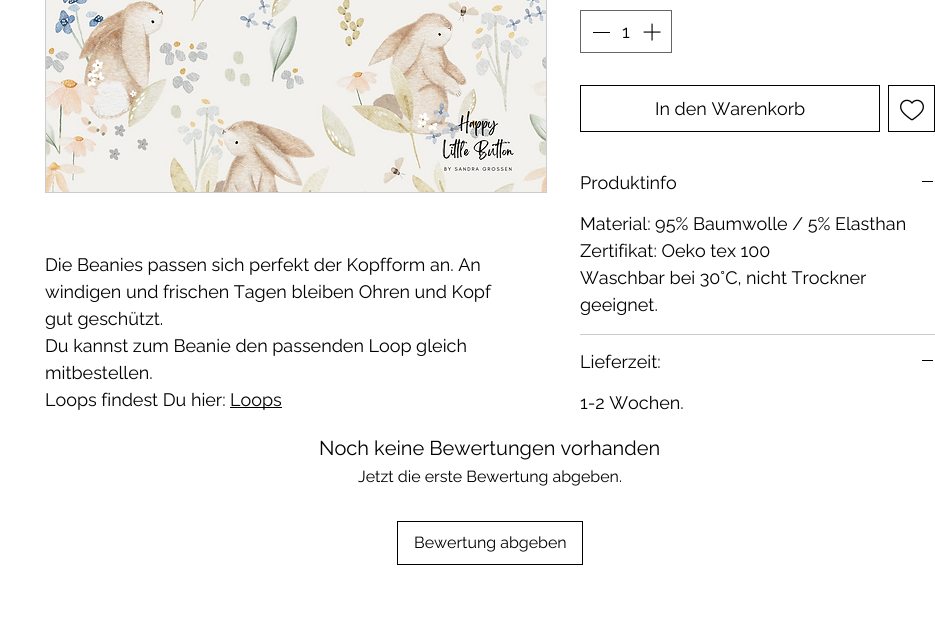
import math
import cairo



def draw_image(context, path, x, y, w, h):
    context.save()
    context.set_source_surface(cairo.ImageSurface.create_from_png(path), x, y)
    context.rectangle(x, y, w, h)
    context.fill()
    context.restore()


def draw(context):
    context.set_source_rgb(1, 1, 1)
    context.paint()
    context.rectangle(45.5, -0.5, 501, 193)
    context.set_source_rgb(204 / 255, 204 / 255, 204 / 255)
    context.set_line_width(1)
    context.stroke()
    draw_image(context, "images/1.png", 46, 0, 500, 192)
    context.set_source_rgb(0, 0, 0)
    context.rectangle(230, 407, 52, 1)
    context.fill()
    context.rectangle(580.5, 10.5, 91, 42)
    context.set_source_rgb(102 / 255, 102 / 255, 102 / 255)
    context.stroke()
    context.set_source_rgb(0, 0, 0)
    context.rectangle(593, 32, 17, 1)
    context.fill()
    draw_image(context, "images/2.png", 643, 23, 18, 18)
    context.rectangle(580.5, 85.5, 299, 46)
    context.stroke()
    context.rectangle(888.5, 85.5, 46, 46)
    context.stroke()
    draw_image(context, "images/3.png", 900, 99, 24, 22)
    context.set_source_rgb(204 / 255, 204 / 255, 204 / 255)
    context.rectangle(580, 334, 355, 1)
    context.fill()
    context.set_source_rgb(0, 0, 0)
    context.rectangle(922, 181, 11, 1)
    context.fill()
    context.rectangle(922, 360, 11, 1)
    context.fill()
    context.rectangle(397.5, 521.5, 185, 43)
    context.stroke()
    context.select_font_face("Raleway")
    context.set_font_size(18)
    context.move_to(45, 271)
    context.show_text("Die Beanies passen sich perfekt der Kopfform an. An")
    context.move_to(45, 298)
    context.show_text("windigen und frischen Tagen bleiben Ohren und Kopf")
    context.move_to(45, 325)
    context.show_text("gut geschützt.")
    context.move_to(45, 352)
    context.show_text("Du kannst zum Beanie den passenden Loop gleich")
    context.move_to(45, 379)
    context.show_text("mitbestellen.")
    context.move_to(45, 406)
    context.show_text("Loops findest Du hier:")
    context.move_to(230, 406)
    context.show_text("Loops")
    context.move_to(622, 38)
    context.show_text("1")
    context.move_to(655, 115)
    context.show_text("In den Warenkorb")
    context.move_to(580, 189)
    context.show_text("Produktinfo")
    context.move_to(580, 230)
    context.show_text("Material: 95% Baumwolle / 5% Elasthan")
    context.move_to(580, 257)
    context.show_text("Zertifikat: Oeko tex 100")
    context.move_to(580, 284)
    context.show_text("Waschbar bei 30°C, nicht Trockner")
    context.move_to(580, 311)
    context.show_text("geeignet.")
    context.move_to(580, 368)
    context.show_text("Lieferzeit:")
    context.move_to(580, 409)
    context.show_text("1-2 Wochen.")
    context.set_font_size(20)
    context.move_to(319, 455)
    context.show_text("Noch keine Bewertungen vorhanden")
    context.set_font_size(16)
    context.move_to(358, 482)
    context.show_text("Jetzt die erste Bewertung abgeben.")
    context.move_to(414, 548)
    context.show_text("Bewertung abgeben")


surface = cairo.ImageSurface(cairo.Format.RGB24, 935, 624)
context = cairo.Context(surface)
options = cairo.FontOptions()
options.set_hint_metrics(cairo.HintMetrics.OFF)
options.set_hint_style(cairo.HintStyle.NONE)
context.set_font_options(options)
context.set_miter_limit(4)
draw(context)
surface.write_to_png("out.png")
